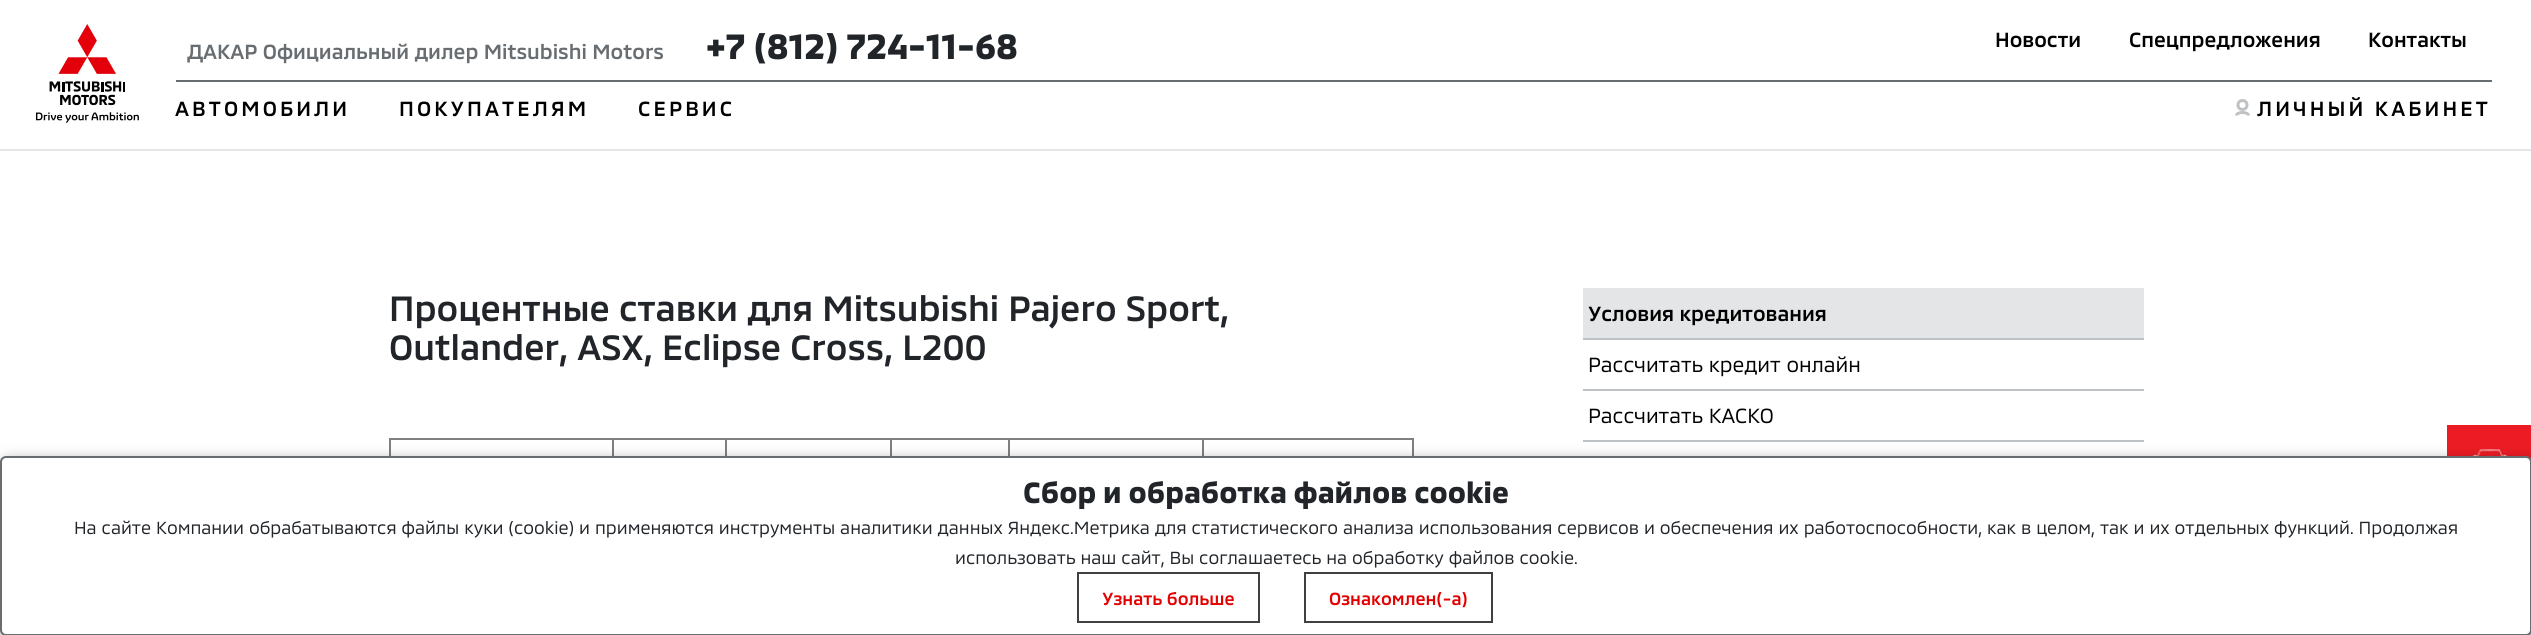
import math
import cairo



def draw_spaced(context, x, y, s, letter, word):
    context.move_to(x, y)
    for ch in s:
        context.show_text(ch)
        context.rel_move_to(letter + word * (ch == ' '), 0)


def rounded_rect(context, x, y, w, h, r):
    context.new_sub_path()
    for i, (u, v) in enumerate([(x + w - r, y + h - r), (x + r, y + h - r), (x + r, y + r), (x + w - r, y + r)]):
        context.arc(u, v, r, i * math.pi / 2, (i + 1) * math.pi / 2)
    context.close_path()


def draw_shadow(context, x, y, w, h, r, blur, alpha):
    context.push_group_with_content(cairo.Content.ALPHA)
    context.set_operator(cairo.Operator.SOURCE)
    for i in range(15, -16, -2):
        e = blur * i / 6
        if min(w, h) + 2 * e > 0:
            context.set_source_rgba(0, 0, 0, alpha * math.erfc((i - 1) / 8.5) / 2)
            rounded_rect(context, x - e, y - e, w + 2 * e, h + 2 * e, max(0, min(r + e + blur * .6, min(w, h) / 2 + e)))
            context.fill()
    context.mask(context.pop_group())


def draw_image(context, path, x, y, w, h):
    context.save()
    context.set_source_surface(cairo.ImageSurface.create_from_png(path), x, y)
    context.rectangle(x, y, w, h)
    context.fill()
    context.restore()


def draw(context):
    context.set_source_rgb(1, 1, 1)
    context.paint()
    context.set_source_rgb(227 / 255, 229 / 255, 230 / 255)
    context.rectangle(0, 149, 2531, 2)
    context.fill()
    draw_image(context, "images/1.png", 36, 24, 103, 99)
    context.set_source_rgb(104 / 255, 109 / 255, 113 / 255)
    context.rectangle(176, 80, 2316, 2)
    context.fill()
    context.arc(2242.5, 105, 4.5, 0, 2 * math.pi)
    context.set_source_rgb(191 / 255, 194 / 255, 196 / 255)
    context.set_line_width(3)
    context.stroke()
    context.new_path()
    context.move_to(2248.5, 115.5)
    context.curve_to(2248.5, 111.5, 2236.5, 111.5, 2236.5, 115.5)
    context.stroke()
    context.set_source_rgb(128 / 255, 128 / 255, 128 / 255)
    context.rectangle(1202, 438, 211, 2)
    context.fill()
    context.rectangle(1202, 438, 2, 18)
    context.fill()
    context.rectangle(1008, 438, 195, 2)
    context.fill()
    context.rectangle(1008, 438, 2, 18)
    context.fill()
    context.rectangle(890, 438, 120, 2)
    context.fill()
    context.rectangle(890, 438, 2, 18)
    context.fill()
    context.rectangle(725, 438, 166, 2)
    context.fill()
    context.rectangle(725, 438, 2, 18)
    context.fill()
    context.rectangle(612, 438, 114, 2)
    context.fill()
    context.rectangle(612, 438, 2, 18)
    context.fill()
    context.rectangle(389, 438, 225, 2)
    context.fill()
    context.rectangle(389, 438, 2, 18)
    context.fill()
    context.rectangle(1412, 438, 2, 18)
    context.fill()
    context.set_source_rgb(191 / 255, 194 / 255, 196 / 255)
    context.rectangle(1583, 338, 561, 2)
    context.fill()
    context.set_source_rgb(227 / 255, 229 / 255, 230 / 255)
    context.rectangle(1583, 288, 561, 50)
    context.fill()
    context.set_source_rgb(191 / 255, 194 / 255, 196 / 255)
    context.rectangle(1583, 389, 561, 2)
    context.fill()
    context.rectangle(1583, 440, 561, 2)
    context.fill()
    context.set_source_rgb(237 / 255, 28 / 255, 36 / 255)
    context.rectangle(2447, 425, 84, 34)
    context.fill()
    draw_image(context, "images/2.png", 2463, 449, 54, 7)
    context.set_source_rgb(0, 0, 0)
    draw_shadow(context, 3, 461, 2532, 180, 6, 7.5, 0.4)
    context.set_source_rgb(1, 1, 1)
    rounded_rect(context, 1, 457, 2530, 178, 5)
    context.fill_preserve()
    context.set_source_rgb(104 / 255, 109 / 255, 113 / 255)
    context.set_line_width(2)
    context.stroke()
    context.rectangle(1078, 573, 181, 49)
    context.set_source_rgb(64 / 255, 64 / 255, 64 / 255)
    context.stroke()
    context.rectangle(1305, 573, 187, 49)
    context.stroke()
    context.select_font_face("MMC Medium")
    context.set_font_size(21)
    context.set_source_rgb(104 / 255, 109 / 255, 113 / 255)
    context.move_to(187, 59)
    context.show_text("ДАКАР Официальный дилер Mitsubishi Motors")
    context.select_font_face("MMC", cairo.FontSlant.NORMAL, cairo.FontWeight.BOLD)
    context.set_font_size(36)
    context.set_source_rgb(33 / 255, 37 / 255, 41 / 255)
    context.move_to(706, 59)
    context.show_text("+7 (812) 724-11-68")
    context.select_font_face("MMC Medium")
    context.set_font_size(21)
    context.set_source_rgb(0, 0, 0)
    context.move_to(1995, 47)
    context.show_text("Новости")
    context.move_to(2129, 47)
    context.show_text("Спецпредложения")
    context.move_to(2368, 47)
    context.show_text("Контакты")
    draw_spaced(context, 175, 116, "АВТОМОБИЛИ", 3.1, 0)
    draw_spaced(context, 399, 116, "ПОКУПАТЕЛЯМ", 3.1, 0)
    draw_spaced(context, 638, 116, "СЕРВИС", 3.1, 0)
    draw_spaced(context, 2257, 116, "ЛИЧНЫЙ КАБИНЕТ", 3.1, 0)
    context.set_font_size(36)
    context.set_source_rgb(33 / 255, 37 / 255, 41 / 255)
    context.move_to(389, 321)
    context.show_text("Процентные ставки для Mitsubishi Pajero Sport,")
    context.move_to(389, 360)
    context.show_text("Outlander, ASX, Eclipse Cross, L200")
    context.set_font_size(21)
    context.set_source_rgb(0, 0, 0)
    context.move_to(1588, 321)
    context.show_text("Условия кредитования")
    context.select_font_face("MMC")
    context.move_to(1588, 372)
    context.show_text("Рассчитать кредит онлайн")
    context.move_to(1588, 423)
    context.show_text("Рассчитать КАСКО")
    context.select_font_face("MMC", cairo.FontSlant.NORMAL, cairo.FontWeight.BOLD)
    context.set_font_size(30)
    context.set_source_rgb(33 / 255, 37 / 255, 41 / 255)
    context.move_to(1023, 503)
    context.show_text("Сбор и обработка файлов cookie")
    context.select_font_face("MMC")
    context.set_font_size(18)
    context.move_to(74, 534)
    context.show_text("На сайте Компании обрабатываются файлы куки (cookie) и применяются инструменты аналитики данных Яндекс.Метрика для статистического анализа использования сервисов и обеспечения их работоспособности, как в целом, так и их отдельных функций. Продолжая")
    context.move_to(955, 564)
    context.show_text("использовать наш сайт, Вы соглашаетесь на обработку файлов cookie.")
    context.select_font_face("MMC Medium")
    context.set_source_rgb(227 / 255, 0, 0)
    context.move_to(1102, 605)
    context.show_text("Узнать больше")
    context.move_to(1329, 605)
    context.show_text("Ознакомлен(-а)")


surface = cairo.ImageSurface(cairo.Format.RGB24, 2531, 635)
context = cairo.Context(surface)
options = cairo.FontOptions()
options.set_hint_metrics(cairo.HintMetrics.OFF)
options.set_hint_style(cairo.HintStyle.NONE)
context.set_font_options(options)
context.set_miter_limit(4)
draw(context)
surface.write_to_png("out.png")
